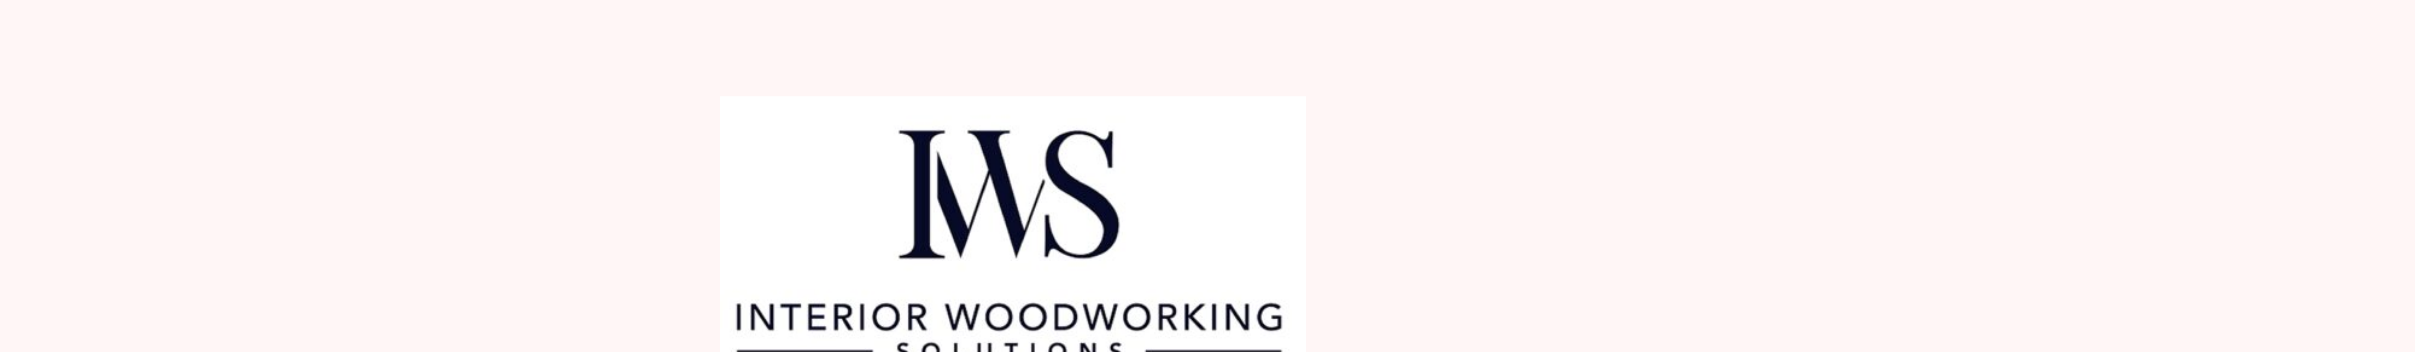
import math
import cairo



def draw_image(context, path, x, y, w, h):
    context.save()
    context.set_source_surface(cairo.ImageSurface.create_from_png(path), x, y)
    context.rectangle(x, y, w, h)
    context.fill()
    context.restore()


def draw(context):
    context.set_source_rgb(1, 246 / 255, 246 / 255)
    context.paint()
    draw_image(context, "images/1.png", 720, 96, 586, 256)


surface = cairo.ImageSurface(cairo.Format.RGB24, 2415, 352)
context = cairo.Context(surface)
options = cairo.FontOptions()
options.set_hint_metrics(cairo.HintMetrics.OFF)
options.set_hint_style(cairo.HintStyle.NONE)
context.set_font_options(options)
context.set_miter_limit(4)
draw(context)
surface.write_to_png("out.png")
